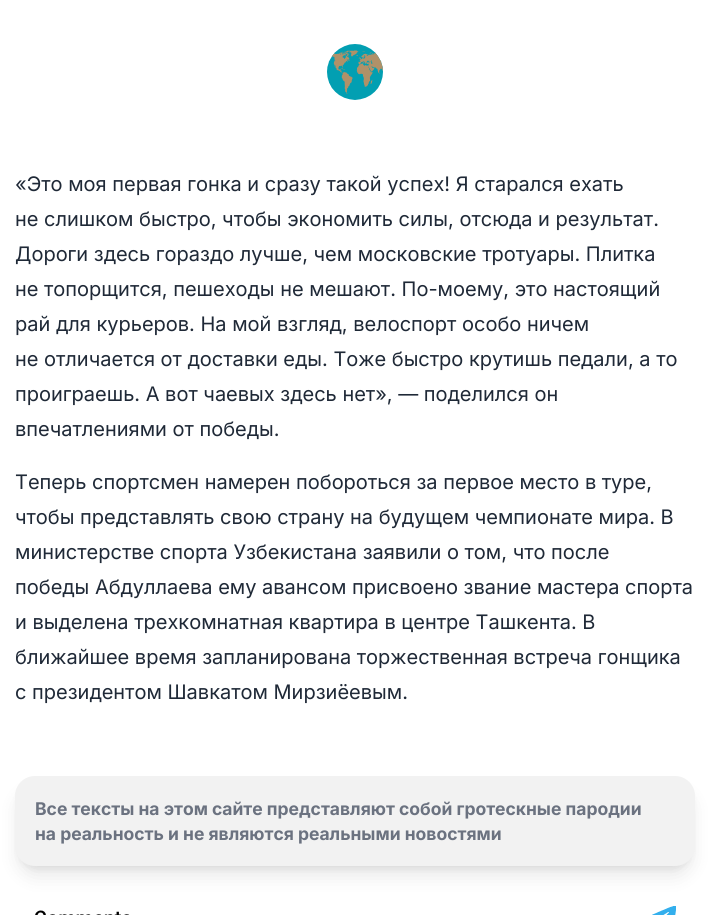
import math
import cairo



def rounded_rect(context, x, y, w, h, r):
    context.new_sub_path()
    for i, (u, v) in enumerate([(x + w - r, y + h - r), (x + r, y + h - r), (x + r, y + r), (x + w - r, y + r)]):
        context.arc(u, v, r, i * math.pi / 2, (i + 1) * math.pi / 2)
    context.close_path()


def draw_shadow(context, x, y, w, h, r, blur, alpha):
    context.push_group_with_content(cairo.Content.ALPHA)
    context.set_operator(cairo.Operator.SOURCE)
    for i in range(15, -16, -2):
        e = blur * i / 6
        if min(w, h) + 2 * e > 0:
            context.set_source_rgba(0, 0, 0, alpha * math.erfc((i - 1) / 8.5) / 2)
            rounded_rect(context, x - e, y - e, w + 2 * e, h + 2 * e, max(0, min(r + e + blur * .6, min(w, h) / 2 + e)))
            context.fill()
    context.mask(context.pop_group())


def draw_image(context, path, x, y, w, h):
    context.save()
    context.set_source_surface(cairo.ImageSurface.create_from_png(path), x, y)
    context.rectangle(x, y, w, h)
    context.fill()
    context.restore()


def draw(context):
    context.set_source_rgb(1, 1, 1)
    context.paint()
    draw_image(context, "images/1.png", 327, 44, 56, 56)
    context.set_source_rgb(0, 0, 0)
    draw_shadow(context, 20, 786, 670, 80, 15, 4, 0.1)
    draw_shadow(context, 19, 793, 672, 82, 16, 9.5, 0.1)
    context.set_source_rgb(242 / 255, 242 / 255, 242 / 255)
    rounded_rect(context, 15, 776, 680, 90, 20)
    context.fill()
    draw_image(context, "images/2.png", 35, 906, 641, 9)
    context.select_font_face("Inter")
    context.set_font_size(20)
    context.set_source_rgb(31 / 255, 41 / 255, 55 / 255)
    context.move_to(15, 191)
    context.show_text("«Это моя первая гонка и сразу такой успех! Я старался ехать")
    context.move_to(15, 226)
    context.show_text("не слишком быстро, чтобы экономить силы, отсюда и результат.")
    context.move_to(15, 261)
    context.show_text("Дороги здесь гораздо лучше, чем московские тротуары. Плитка")
    context.move_to(15, 296)
    context.show_text("не топорщится, пешеходы не мешают. По-моему, это настоящий")
    context.move_to(15, 331)
    context.show_text("рай для курьеров. На мой взгляд, велоспорт особо ничем")
    context.move_to(15, 366)
    context.show_text("не отличается от доставки еды. Тоже быстро крутишь педали, а то")
    context.move_to(15, 401)
    context.show_text("проиграешь. А вот чаевых здесь нет», — поделился он")
    context.move_to(15, 436)
    context.show_text("впечатлениями от победы.")
    context.move_to(15, 489)
    context.show_text("Теперь спортсмен намерен побороться за первое место в туре,")
    context.move_to(15, 524)
    context.show_text("чтобы представлять свою страну на будущем чемпионате мира. В")
    context.move_to(15, 559)
    context.show_text("министерстве спорта Узбекистана заявили о том, что после")
    context.move_to(15, 594)
    context.show_text("победы Абдуллаева ему авансом присвоено звание мастера спорта")
    context.move_to(15, 629)
    context.show_text("и выделена трехкомнатная квартира в центре Ташкента. В")
    context.move_to(15, 664)
    context.show_text("ближайшее время запланирована торжественная встреча гонщика")
    context.move_to(15, 699)
    context.show_text("с президентом Шавкатом Мирзиёевым.")
    context.select_font_face("Inter", cairo.FontSlant.NORMAL, cairo.FontWeight.BOLD)
    context.set_font_size(17.5)
    context.set_source_rgb(107 / 255, 114 / 255, 128 / 255)
    context.move_to(35, 815)
    context.show_text("Все тексты на этом сайте представляют собой гротескные пародии")
    context.move_to(35, 840)
    context.show_text("на реальность и не являются реальными новостями")


surface = cairo.ImageSurface(cairo.Format.RGB24, 710, 915)
context = cairo.Context(surface)
options = cairo.FontOptions()
options.set_hint_metrics(cairo.HintMetrics.OFF)
options.set_hint_style(cairo.HintStyle.NONE)
context.set_font_options(options)
context.set_miter_limit(4)
draw(context)
surface.write_to_png("out.png")
